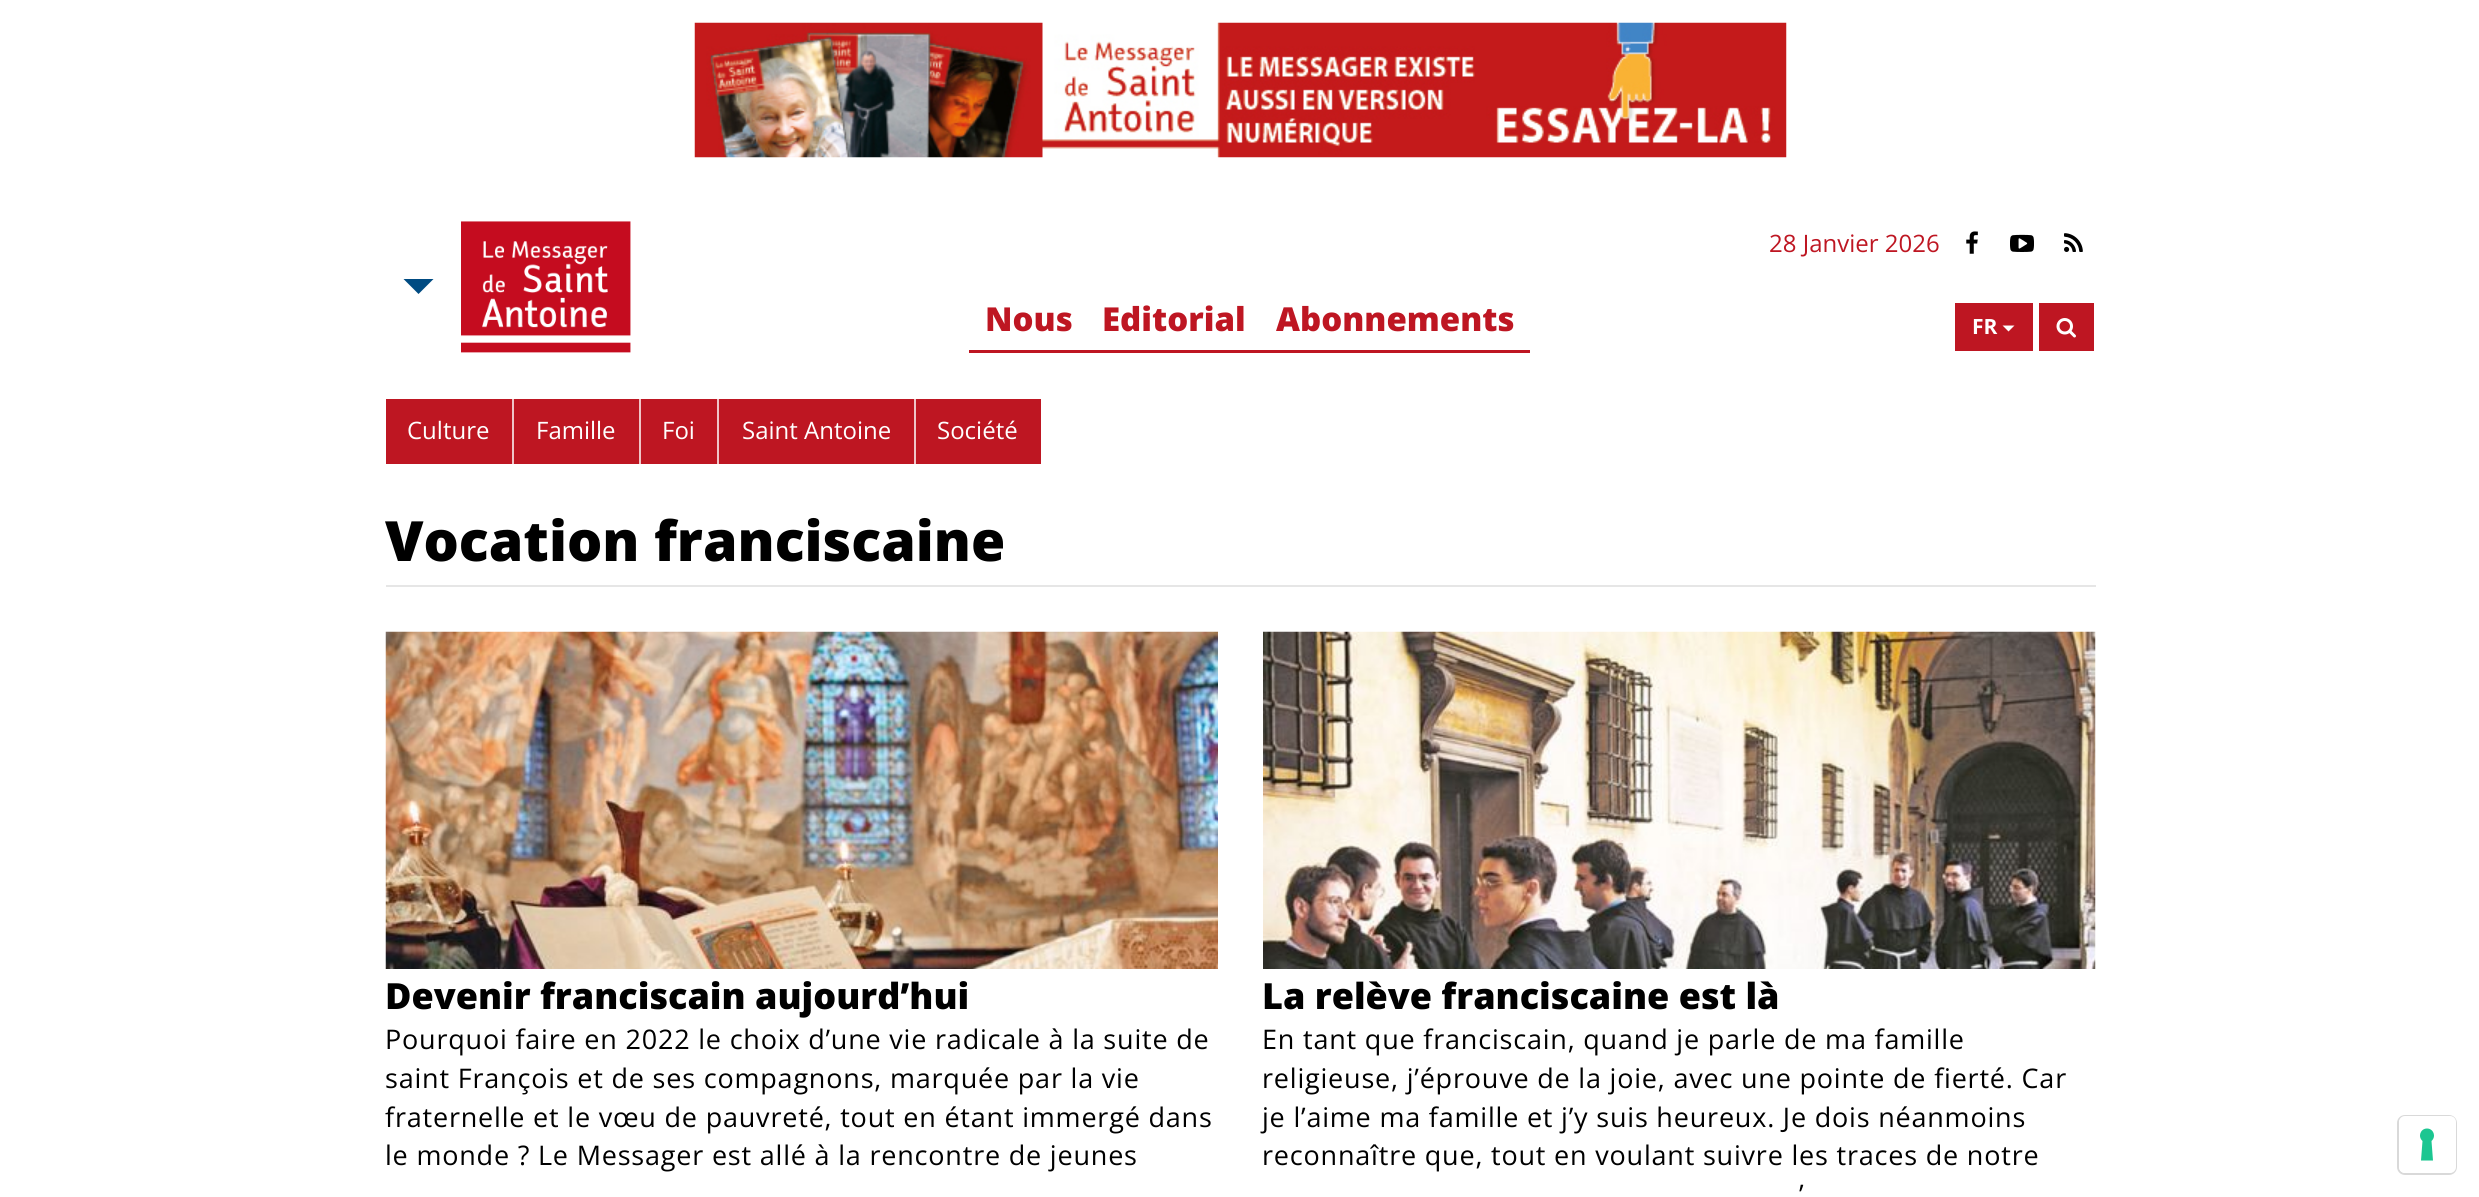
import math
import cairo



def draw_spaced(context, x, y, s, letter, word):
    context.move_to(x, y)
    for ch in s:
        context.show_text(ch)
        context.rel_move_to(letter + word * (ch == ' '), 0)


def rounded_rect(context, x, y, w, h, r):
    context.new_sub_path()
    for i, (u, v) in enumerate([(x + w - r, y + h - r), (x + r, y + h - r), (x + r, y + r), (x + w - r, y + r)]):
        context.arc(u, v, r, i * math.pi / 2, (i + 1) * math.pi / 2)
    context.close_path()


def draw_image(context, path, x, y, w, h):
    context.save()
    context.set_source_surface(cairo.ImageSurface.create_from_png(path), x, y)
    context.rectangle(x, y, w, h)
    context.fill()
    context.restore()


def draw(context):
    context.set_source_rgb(1, 1, 1)
    context.paint()
    draw_image(context, "images/1.png", 694, 22, 1093, 136)
    context.set_source_rgb(0, 75 / 255, 130 / 255)
    context.new_path()
    context.move_to(403.5, 279)
    context.line_to(433.5, 279)
    context.line_to(418.5, 294)
    context.close_path()
    context.fill()
    draw_image(context, "images/2.png", 461, 221, 170, 132)
    draw_image(context, "images/3.png", 1966, 231, 12, 23)
    draw_image(context, "images/4.png", 2010, 234, 24, 18)
    draw_image(context, "images/5.png", 2064, 233, 19, 19)
    context.set_source_rgb(190 / 255, 22 / 255, 34 / 255)
    context.rectangle(969, 350, 561, 3)
    context.fill()
    context.rectangle(1955, 303, 78, 48)
    context.fill()
    context.set_source_rgb(1, 1, 1)
    context.new_path()
    context.move_to(2002.5, 325.5)
    context.line_to(2014.5, 325.5)
    context.line_to(2008.5, 331.5)
    context.close_path()
    context.fill()
    context.set_source_rgb(190 / 255, 22 / 255, 34 / 255)
    context.rectangle(2039, 303, 55, 48)
    context.fill()
    draw_image(context, "images/6.png", 2056, 318, 20, 20)
    context.rectangle(386, 399, 126, 65)
    context.fill()
    context.rectangle(514, 399, 125, 65)
    context.fill()
    context.set_source_rgb(239 / 255, 197 / 255, 200 / 255)
    context.rectangle(512, 399, 2, 65)
    context.fill()
    context.set_source_rgb(190 / 255, 22 / 255, 34 / 255)
    context.rectangle(641, 399, 76, 65)
    context.fill()
    context.set_source_rgb(239 / 255, 197 / 255, 200 / 255)
    context.rectangle(639, 399, 2, 65)
    context.fill()
    context.set_source_rgb(190 / 255, 22 / 255, 34 / 255)
    context.rectangle(719, 399, 195, 65)
    context.fill()
    context.set_source_rgb(239 / 255, 197 / 255, 200 / 255)
    context.rectangle(717, 399, 2, 65)
    context.fill()
    context.set_source_rgb(190 / 255, 22 / 255, 34 / 255)
    context.rectangle(916, 399, 125, 65)
    context.fill()
    context.set_source_rgb(239 / 255, 197 / 255, 200 / 255)
    context.rectangle(914, 399, 2, 65)
    context.fill()
    context.set_source_rgb(230 / 255, 230 / 255, 230 / 255)
    context.rectangle(386, 585, 1710, 2)
    context.fill()
    draw_image(context, "images/7.png", 385, 631, 833, 338)
    draw_image(context, "images/8.png", 1263, 631, 833, 338)
    rounded_rect(context, 2398, 1116, 58, 58, 7)
    context.set_source_rgb(217 / 255, 217 / 255, 217 / 255)
    context.stroke()
    context.set_source_rgb(1, 1, 1)
    rounded_rect(context, 2399, 1116, 57, 57, 6)
    context.fill()
    context.set_source_rgb(28 / 255, 198 / 255, 145 / 255)
    context.set_fill_rule(cairo.FillRule.EVEN_ODD)
    context.new_path()
    context.move_to(2427, 1128.5)
    context.curve_to(2433.5, 1128.5, 2436.5, 1136.5, 2431.5, 1141)
    context.line_to(2433, 1160.5)
    context.line_to(2421, 1160.5)
    context.line_to(2422.5, 1141)
    context.curve_to(2417.5, 1136.5, 2420.5, 1128.5, 2427, 1128.5)
    context.close_path()
    context.fill()
    context.select_font_face("Open Sans")
    context.set_font_size(24)
    context.set_source_rgb(190 / 255, 22 / 255, 34 / 255)
    context.move_to(1769, 252)
    context.show_text("28 Janvier 2026")
    context.select_font_face("Open Sans ExtraBold")
    context.set_font_size(33)
    context.move_to(985, 331)
    context.show_text("Nous")
    context.move_to(1102, 331)
    context.show_text("Editorial")
    context.move_to(1276, 331)
    context.show_text("Abonnements")
    context.select_font_face("Open Sans", cairo.FontSlant.NORMAL, cairo.FontWeight.BOLD)
    context.set_font_size(21)
    context.set_source_rgb(1, 1, 1)
    context.move_to(1972, 334)
    context.show_text("FR")
    context.select_font_face("Open Sans")
    context.set_font_size(24)
    context.move_to(407, 439)
    context.show_text("Culture")
    context.move_to(536, 439)
    context.show_text("Famille")
    context.move_to(662, 439)
    context.show_text("Foi")
    context.move_to(742, 439)
    context.show_text("Saint Antoine")
    context.move_to(937, 439)
    context.show_text("Société")
    context.select_font_face("Open Sans ExtraBold")
    context.set_font_size(55.5)
    context.set_source_rgb(0, 0, 0)
    context.move_to(385, 561)
    context.show_text("Vocation franciscaine")
    context.set_font_size(36)
    context.move_to(385, 1009)
    context.show_text("Devenir franciscain aujourd’hui")
    context.select_font_face("Open Sans")
    context.set_font_size(27)
    draw_spaced(context, 385, 1049, "Pourquoi faire en 2022 le choix d’une vie radicale à la suite de", 0.8, 0)
    draw_spaced(context, 385, 1088, "saint François et de ses compagnons, marquée par la vie", 0.8, 0)
    draw_spaced(context, 385, 1127, "fraternelle et le vœu de pauvreté, tout en étant immergé dans", 0.8, 0)
    draw_spaced(context, 385, 1165, "le monde ? Le Messager est allé à la rencontre de jeunes", 0.8, 0)
    context.select_font_face("Open Sans ExtraBold")
    context.set_font_size(36)
    context.move_to(1262, 1009)
    context.show_text("La relève franciscaine est là")
    context.select_font_face("Open Sans")
    context.set_font_size(27)
    draw_spaced(context, 1262, 1049, "En tant que franciscain, quand je parle de ma famille", 0.8, 0)
    draw_spaced(context, 1262, 1088, "religieuse, j’éprouve de la joie, avec une pointe de fierté. Car", 0.8, 0)
    draw_spaced(context, 1262, 1127, "je l’aime ma famille et j’y suis heureux. Je dois néanmoins", 0.8, 0)
    draw_spaced(context, 1262, 1165, "reconnaître que, tout en voulant suivre les traces de notre", 0.8, 0)
    draw_spaced(context, 1799, 1204, "’", 0.8, 0)


surface = cairo.ImageSurface(cairo.Format.RGB24, 2479, 1197)
context = cairo.Context(surface)
options = cairo.FontOptions()
options.set_hint_metrics(cairo.HintMetrics.OFF)
options.set_hint_style(cairo.HintStyle.NONE)
context.set_font_options(options)
context.set_miter_limit(4)
draw(context)
surface.write_to_png("out.png")
